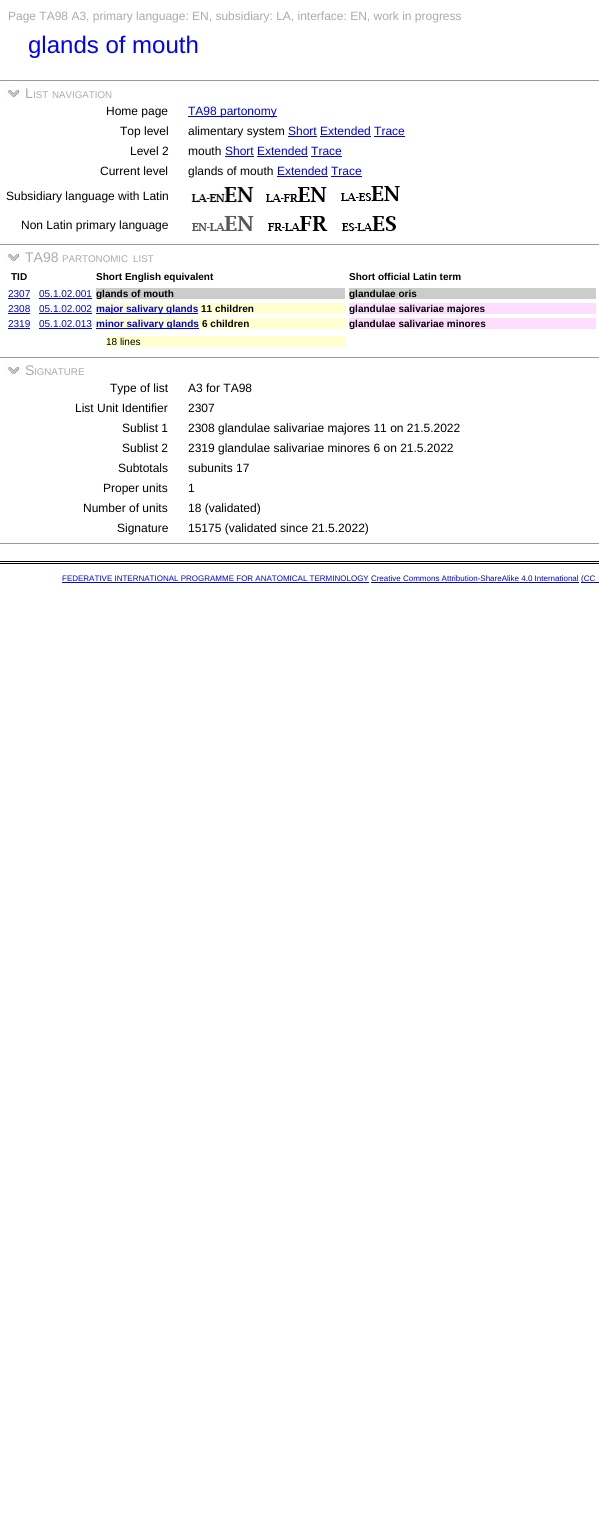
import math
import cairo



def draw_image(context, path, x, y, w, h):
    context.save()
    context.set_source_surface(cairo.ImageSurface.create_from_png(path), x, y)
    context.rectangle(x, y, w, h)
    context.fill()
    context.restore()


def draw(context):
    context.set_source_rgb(1, 1, 1)
    context.paint()
    context.set_source_rgb(153 / 255, 153 / 255, 153 / 255)
    context.rectangle(0, 80, 599, 1)
    context.fill()
    draw_image(context, "images/1.png", 5, 86, 16, 12)
    context.set_source_rgb(0, 0, 238 / 255)
    context.rectangle(188, 116, 89, 1)
    context.fill()
    context.rectangle(288, 136, 29, 1)
    context.fill()
    context.rectangle(320, 136, 51, 1)
    context.fill()
    context.rectangle(374, 136, 31, 1)
    context.fill()
    context.rectangle(225, 156, 29, 1)
    context.fill()
    context.rectangle(257, 156, 51, 1)
    context.fill()
    context.rectangle(311, 156, 31, 1)
    context.fill()
    context.rectangle(277, 176, 51, 1)
    context.fill()
    context.rectangle(331, 176, 31, 1)
    context.fill()
    draw_image(context, "images/2.png", 191, 187, 63, 16)
    draw_image(context, "images/3.png", 266, 187, 61, 15)
    draw_image(context, "images/4.png", 341, 186, 59, 15)
    draw_image(context, "images/5.png", 192, 215, 62, 16)
    draw_image(context, "images/6.png", 268, 216, 60, 15)
    draw_image(context, "images/7.png", 342, 216, 54, 16)
    context.set_source_rgb(153 / 255, 153 / 255, 153 / 255)
    context.rectangle(0, 244, 599, 1)
    context.fill()
    draw_image(context, "images/1.png", 5, 250, 16, 12)
    context.set_source_rgb(0, 0, 238 / 255)
    context.rectangle(8, 298, 22, 1)
    context.fill()
    context.rectangle(39, 298, 53, 1)
    context.fill()
    context.set_source_rgb(204 / 255, 204 / 255, 204 / 255)
    context.rectangle(96, 288, 249, 11)
    context.fill()
    context.rectangle(349, 288, 247, 11)
    context.fill()
    context.set_source_rgb(0, 0, 238 / 255)
    context.rectangle(8, 313, 22, 1)
    context.fill()
    context.rectangle(39, 313, 53, 1)
    context.fill()
    context.set_source_rgb(1, 1, 208 / 255)
    context.rectangle(96, 303, 249, 11)
    context.fill()
    context.set_source_rgb(0, 0, 238 / 255)
    context.rectangle(96, 313, 102, 1)
    context.fill()
    context.set_source_rgb(1, 221 / 255, 1)
    context.rectangle(349, 303, 247, 11)
    context.fill()
    context.set_source_rgb(0, 0, 238 / 255)
    context.rectangle(8, 328, 22, 1)
    context.fill()
    context.rectangle(39, 328, 53, 1)
    context.fill()
    context.set_source_rgb(1, 1, 208 / 255)
    context.rectangle(96, 318, 249, 11)
    context.fill()
    context.set_source_rgb(0, 0, 238 / 255)
    context.rectangle(96, 328, 103, 1)
    context.fill()
    context.set_source_rgb(1, 221 / 255, 1)
    context.rectangle(349, 318, 247, 11)
    context.fill()
    context.set_source_rgb(1, 1, 208 / 255)
    context.rectangle(106, 336, 239, 11)
    context.fill()
    context.set_source_rgb(153 / 255, 153 / 255, 153 / 255)
    context.rectangle(0, 357, 599, 1)
    context.fill()
    draw_image(context, "images/1.png", 5, 363, 16, 12)
    context.rectangle(0, 543, 599, 1)
    context.fill()
    context.set_source_rgb(0, 0, 0)
    context.rectangle(0, 561, 599, 1)
    context.fill()
    context.rectangle(0, 563, 599, 1)
    context.fill()
    context.set_source_rgb(0, 0, 238 / 255)
    context.rectangle(62, 582, 307, 1)
    context.fill()
    context.rectangle(581, 582, 18, 1)
    context.fill()
    context.rectangle(371, 582, 208, 1)
    context.fill()
    context.select_font_face("Liberation Sans")
    context.set_font_size(12)
    context.set_source_rgb(170 / 255, 170 / 255, 170 / 255)
    context.move_to(8, 20)
    context.show_text("Page TA98 A3, primary language: EN, subsidiary: LA, interface: EN, work in progress")
    context.set_font_size(24)
    context.set_source_rgb(0, 0, 1)
    context.move_to(28, 53)
    context.show_text("glands of mouth")
    context.set_font_size(14)
    context.set_source_rgb(170 / 255, 170 / 255, 170 / 255)
    context.move_to(25, 98)
    context.show_text("L")
    context.set_font_size(9.75)
    context.move_to(33, 98)
    context.show_text("IST")
    context.move_to(52, 98)
    context.show_text("NAVIGATION")
    context.set_font_size(12)
    context.set_source_rgb(0, 0, 0)
    context.move_to(106, 115)
    context.show_text("Home page")
    context.set_source_rgb(0, 0, 238 / 255)
    context.move_to(188, 115)
    context.show_text("TA98 partonomy")
    context.set_source_rgb(0, 0, 0)
    context.move_to(120, 135)
    context.show_text("Top level")
    context.move_to(188, 135)
    context.show_text("alimentary system")
    context.set_source_rgb(0, 0, 238 / 255)
    context.move_to(288, 135)
    context.show_text("Short Extended Trace")
    context.set_source_rgb(0, 0, 0)
    context.move_to(130, 155)
    context.show_text("Level 2")
    context.move_to(188, 155)
    context.show_text("mouth")
    context.set_source_rgb(0, 0, 238 / 255)
    context.move_to(225, 155)
    context.show_text("Short Extended Trace")
    context.set_source_rgb(0, 0, 0)
    context.move_to(100, 175)
    context.show_text("Current level")
    context.move_to(188, 175)
    context.show_text("glands of mouth")
    context.set_source_rgb(0, 0, 238 / 255)
    context.move_to(277, 175)
    context.show_text("Extended Trace")
    context.set_source_rgb(0, 0, 0)
    context.move_to(6, 200)
    context.show_text("Subsidiary language with Latin")
    context.move_to(21, 229)
    context.show_text("Non Latin primary language")
    context.set_font_size(14)
    context.set_source_rgb(170 / 255, 170 / 255, 170 / 255)
    context.move_to(25, 262)
    context.show_text("TA98")
    context.set_font_size(9.75)
    context.move_to(62, 262)
    context.show_text("PARTONOMIC")
    context.move_to(133, 262)
    context.show_text("LIST")
    context.select_font_face("Liberation Sans", cairo.FontSlant.NORMAL, cairo.FontWeight.BOLD)
    context.set_font_size(10)
    context.set_source_rgb(0, 0, 0)
    context.move_to(11, 280)
    context.show_text("TID")
    context.move_to(96, 280)
    context.show_text("Short English equivalent")
    context.move_to(349, 280)
    context.show_text("Short official Latin term")
    context.select_font_face("Liberation Sans")
    context.set_source_rgb(0, 0, 238 / 255)
    context.move_to(8, 297)
    context.show_text("2307")
    context.move_to(39, 297)
    context.show_text("05.1.02.001")
    context.select_font_face("Liberation Sans", cairo.FontSlant.NORMAL, cairo.FontWeight.BOLD)
    context.set_source_rgb(0, 0, 0)
    context.move_to(96, 297)
    context.show_text("glands of mouth")
    context.move_to(349, 297)
    context.show_text("glandulae oris")
    context.select_font_face("Liberation Sans")
    context.set_source_rgb(0, 0, 238 / 255)
    context.move_to(8, 312)
    context.show_text("2308")
    context.move_to(39, 312)
    context.show_text("05.1.02.002")
    context.select_font_face("Liberation Sans", cairo.FontSlant.NORMAL, cairo.FontWeight.BOLD)
    context.move_to(96, 312)
    context.show_text("major salivary glands")
    context.set_source_rgb(0, 0, 0)
    context.move_to(201, 312)
    context.show_text("11 children")
    context.move_to(349, 312)
    context.show_text("glandulae salivariae majores")
    context.select_font_face("Liberation Sans")
    context.set_source_rgb(0, 0, 238 / 255)
    context.move_to(8, 327)
    context.show_text("2319")
    context.move_to(39, 327)
    context.show_text("05.1.02.013")
    context.select_font_face("Liberation Sans", cairo.FontSlant.NORMAL, cairo.FontWeight.BOLD)
    context.move_to(96, 327)
    context.show_text("minor salivary glands")
    context.set_source_rgb(0, 0, 0)
    context.move_to(202, 327)
    context.show_text("6 children")
    context.move_to(349, 327)
    context.show_text("glandulae salivariae minores")
    context.select_font_face("Liberation Sans")
    context.move_to(106, 345)
    context.show_text("18 lines")
    context.set_font_size(14)
    context.set_source_rgb(170 / 255, 170 / 255, 170 / 255)
    context.move_to(25, 375)
    context.show_text("S")
    context.set_font_size(9.75)
    context.move_to(34, 375)
    context.show_text("IGNATURE")
    context.set_font_size(12)
    context.set_source_rgb(0, 0, 0)
    context.move_to(110, 392)
    context.show_text("Type of list")
    context.move_to(188, 392)
    context.show_text("A3 for TA98")
    context.move_to(75, 412)
    context.show_text("List Unit Identifier")
    context.move_to(188, 412)
    context.show_text("2307")
    context.move_to(122, 432)
    context.show_text("Sublist 1")
    context.move_to(188, 432)
    context.show_text("2308 glandulae salivariae majores 11 on 21.5.2022")
    context.move_to(122, 452)
    context.show_text("Sublist 2")
    context.move_to(188, 452)
    context.show_text("2319 glandulae salivariae minores 6 on 21.5.2022")
    context.move_to(118, 472)
    context.show_text("Subtotals")
    context.move_to(188, 472)
    context.show_text("subunits 17")
    context.move_to(103, 492)
    context.show_text("Proper units")
    context.move_to(188, 492)
    context.show_text("1")
    context.move_to(83, 512)
    context.show_text("Number of units")
    context.move_to(188, 512)
    context.show_text("18 (validated)")
    context.move_to(117, 532)
    context.show_text("Signature")
    context.move_to(188, 532)
    context.show_text("15175 (validated since 21.5.2022)")
    context.set_font_size(8)
    context.set_source_rgb(0, 0, 238 / 255)
    context.move_to(62, 581)
    context.show_text("FEDERATIVE INTERNATIONAL PROGRAMME FOR ANATOMICAL TERMINOLOGY Creative Commons Attribution-ShareAlike 4.0 International")
    context.move_to(581, 581)
    context.show_text("(CC")


surface = cairo.ImageSurface(cairo.Format.RGB24, 599, 1537)
context = cairo.Context(surface)
options = cairo.FontOptions()
options.set_hint_metrics(cairo.HintMetrics.OFF)
options.set_hint_style(cairo.HintStyle.NONE)
context.set_font_options(options)
context.set_miter_limit(4)
draw(context)
surface.write_to_png("out.png")
